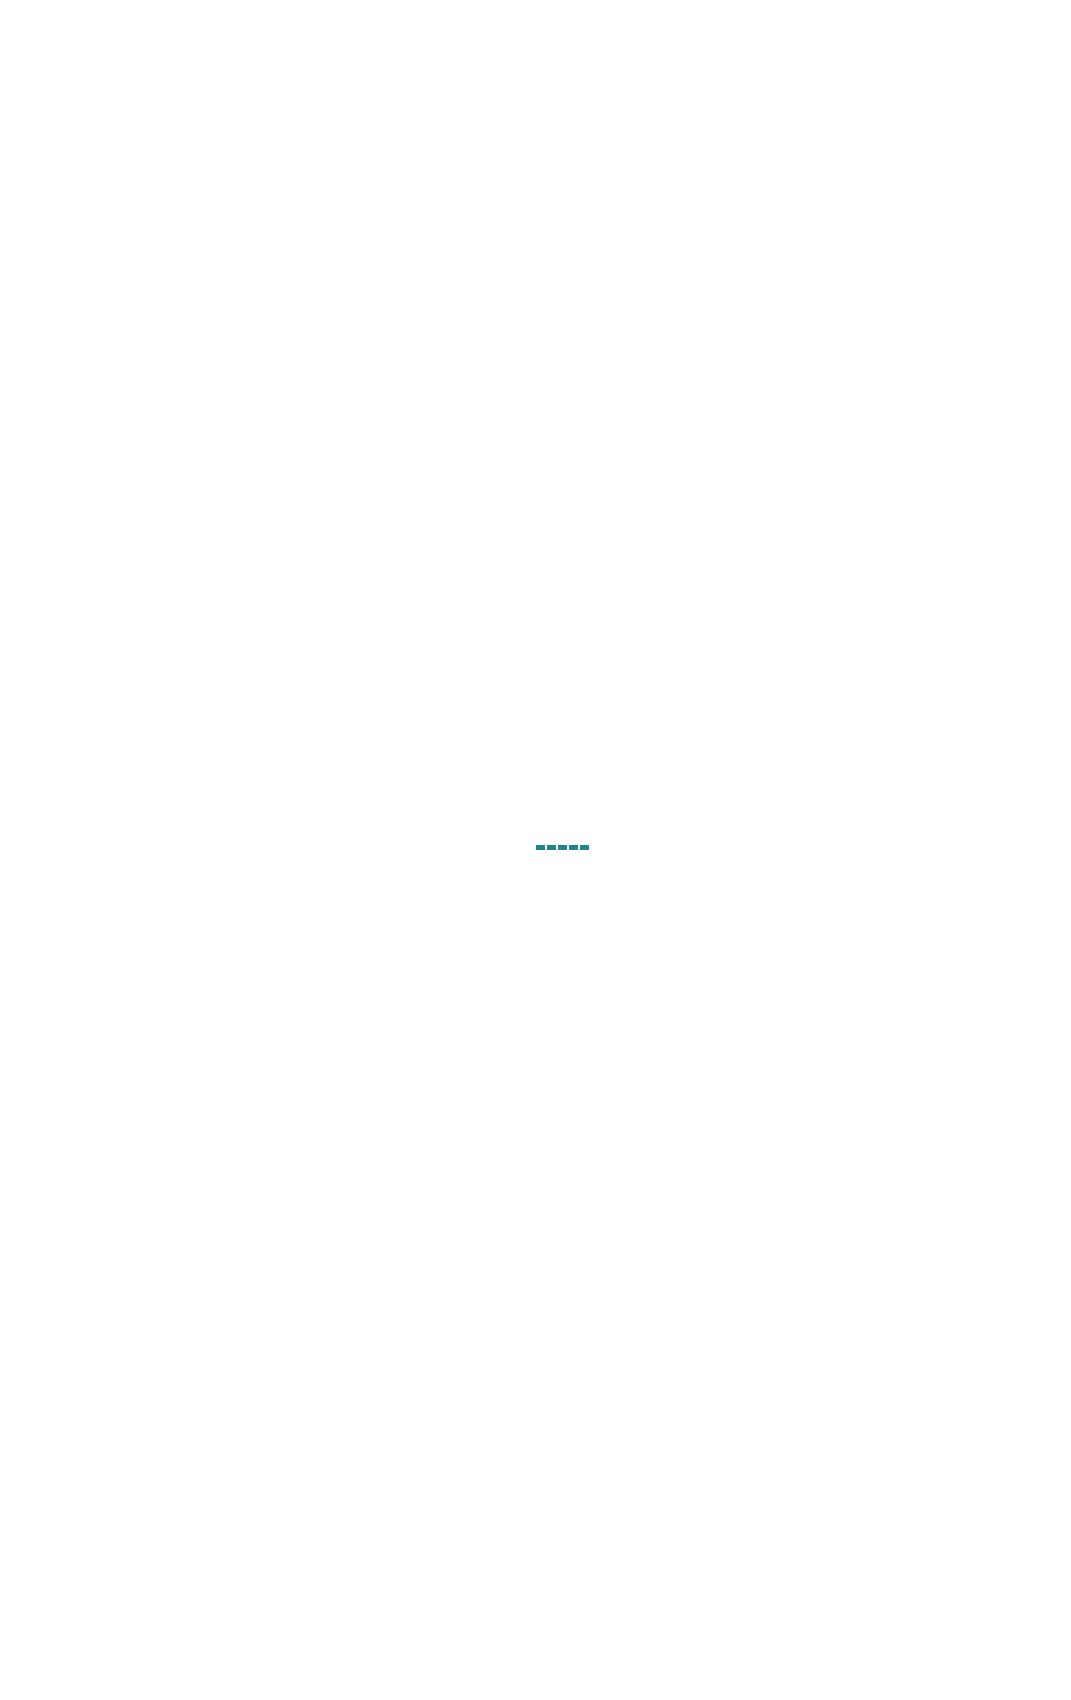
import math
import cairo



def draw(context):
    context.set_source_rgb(1, 1, 1)
    context.paint()
    context.set_source_rgb(33 / 255, 133 / 255, 140 / 255)
    context.rectangle(536, 845, 9, 5)
    context.fill()
    context.rectangle(547, 845, 9, 5)
    context.fill()
    context.rectangle(558, 845, 9, 5)
    context.fill()
    context.rectangle(569, 845, 9, 5)
    context.fill()
    context.rectangle(580, 845, 9, 5)
    context.fill()


surface = cairo.ImageSurface(cairo.Format.RGB24, 1071, 1700)
context = cairo.Context(surface)
options = cairo.FontOptions()
options.set_hint_metrics(cairo.HintMetrics.OFF)
options.set_hint_style(cairo.HintStyle.NONE)
context.set_font_options(options)
context.set_miter_limit(4)
draw(context)
surface.write_to_png("out.png")
